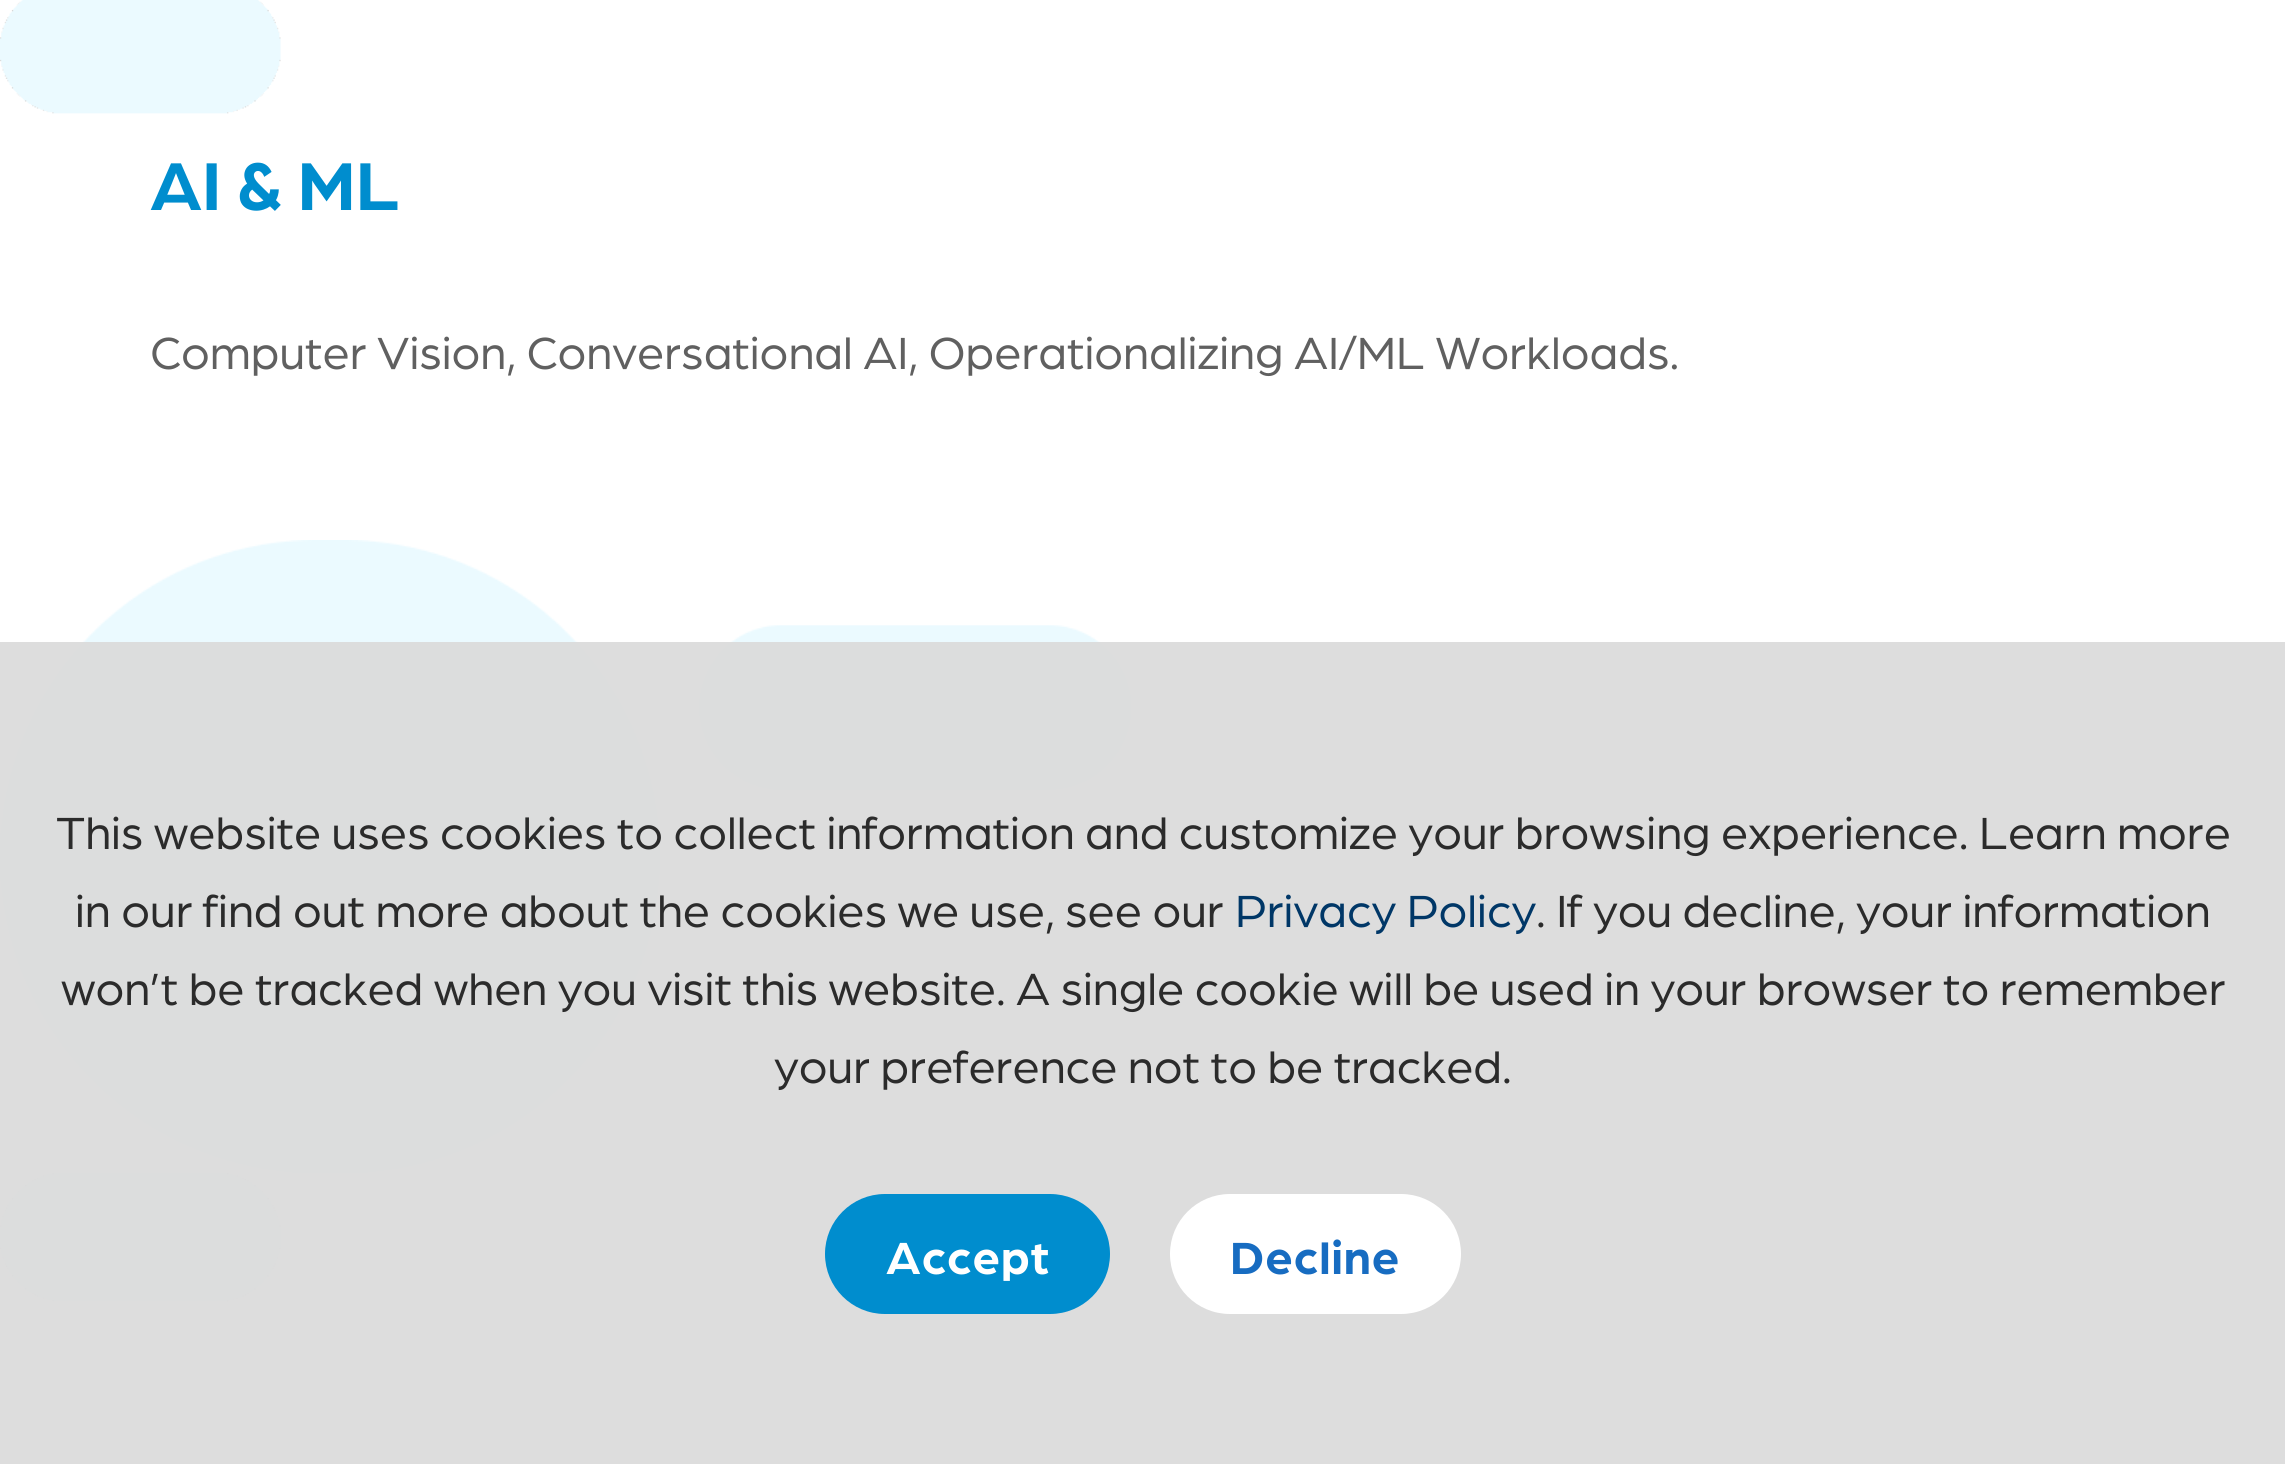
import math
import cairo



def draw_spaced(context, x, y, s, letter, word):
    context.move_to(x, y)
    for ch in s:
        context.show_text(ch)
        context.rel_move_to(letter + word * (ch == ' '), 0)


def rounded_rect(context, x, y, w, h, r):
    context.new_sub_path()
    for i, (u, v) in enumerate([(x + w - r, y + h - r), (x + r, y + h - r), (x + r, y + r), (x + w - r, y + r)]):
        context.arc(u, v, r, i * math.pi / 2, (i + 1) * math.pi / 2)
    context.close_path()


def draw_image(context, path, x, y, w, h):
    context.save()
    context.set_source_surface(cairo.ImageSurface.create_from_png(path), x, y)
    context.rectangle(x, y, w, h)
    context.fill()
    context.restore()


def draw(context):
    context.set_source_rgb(1, 1, 1)
    context.paint()
    draw_image(context, "images/1.png", 0, 0, 281, 114)
    draw_image(context, "images/2.png", 0, 540, 1131, 633)
    draw_image(context, "images/3.png", 0, 1173, 281, 129)
    context.set_source_rgba(219 / 255, 219 / 255, 219 / 255, 0.94)
    context.rectangle(0, 642, 2285, 822)
    context.fill()
    context.set_source_rgb(0, 141 / 255, 206 / 255)
    rounded_rect(context, 825, 1194, 285, 120, 60)
    context.fill()
    context.set_source_rgb(1, 1, 1)
    rounded_rect(context, 1170, 1194, 291, 120, 60)
    context.fill()
    context.select_font_face("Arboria", cairo.FontSlant.NORMAL, cairo.FontWeight.BOLD)
    context.set_font_size(72)
    context.set_source_rgb(0, 141 / 255, 206 / 255)
    context.move_to(150, 210)
    context.show_text("AI & ML")
    context.select_font_face("Arboria")
    context.set_font_size(48)
    context.set_source_rgb(96 / 255, 96 / 255, 96 / 255)
    context.move_to(150, 369)
    context.show_text("Computer Vision, Conversational AI, Operationalizing AI/ML Workloads.")
    context.set_source_rgb(43 / 255, 43 / 255, 43 / 255)
    context.move_to(56, 849)
    context.show_text("This website uses cookies to collect information and customize your browsing experience. Learn more")
    context.move_to(75, 927)
    context.show_text("in our find out more about the cookies we use, see our")
    context.set_source_rgb(0, 55 / 255, 103 / 255)
    context.move_to(1235, 927)
    context.show_text("Privacy Policy")
    context.set_source_rgb(43 / 255, 43 / 255, 43 / 255)
    context.move_to(1536, 927)
    context.show_text(". If you decline, your information")
    context.move_to(61, 1005)
    context.show_text("won’t be tracked when you visit this website. A single cookie will be used in your browser to remember")
    context.move_to(774, 1083)
    context.show_text("your preference not to be tracked.")
    context.select_font_face("Arboria", cairo.FontSlant.NORMAL, cairo.FontWeight.BOLD)
    context.set_source_rgb(1, 1, 1)
    draw_spaced(context, 886, 1274, "Accept", 1, 0)
    context.set_source_rgb(23 / 255, 108 / 255, 193 / 255)
    draw_spaced(context, 1230, 1274, "Decline", 1, 0)


surface = cairo.ImageSurface(cairo.Format.RGB24, 2285, 1464)
context = cairo.Context(surface)
options = cairo.FontOptions()
options.set_hint_metrics(cairo.HintMetrics.OFF)
options.set_hint_style(cairo.HintStyle.NONE)
context.set_font_options(options)
context.set_miter_limit(4)
draw(context)
surface.write_to_png("out.png")
